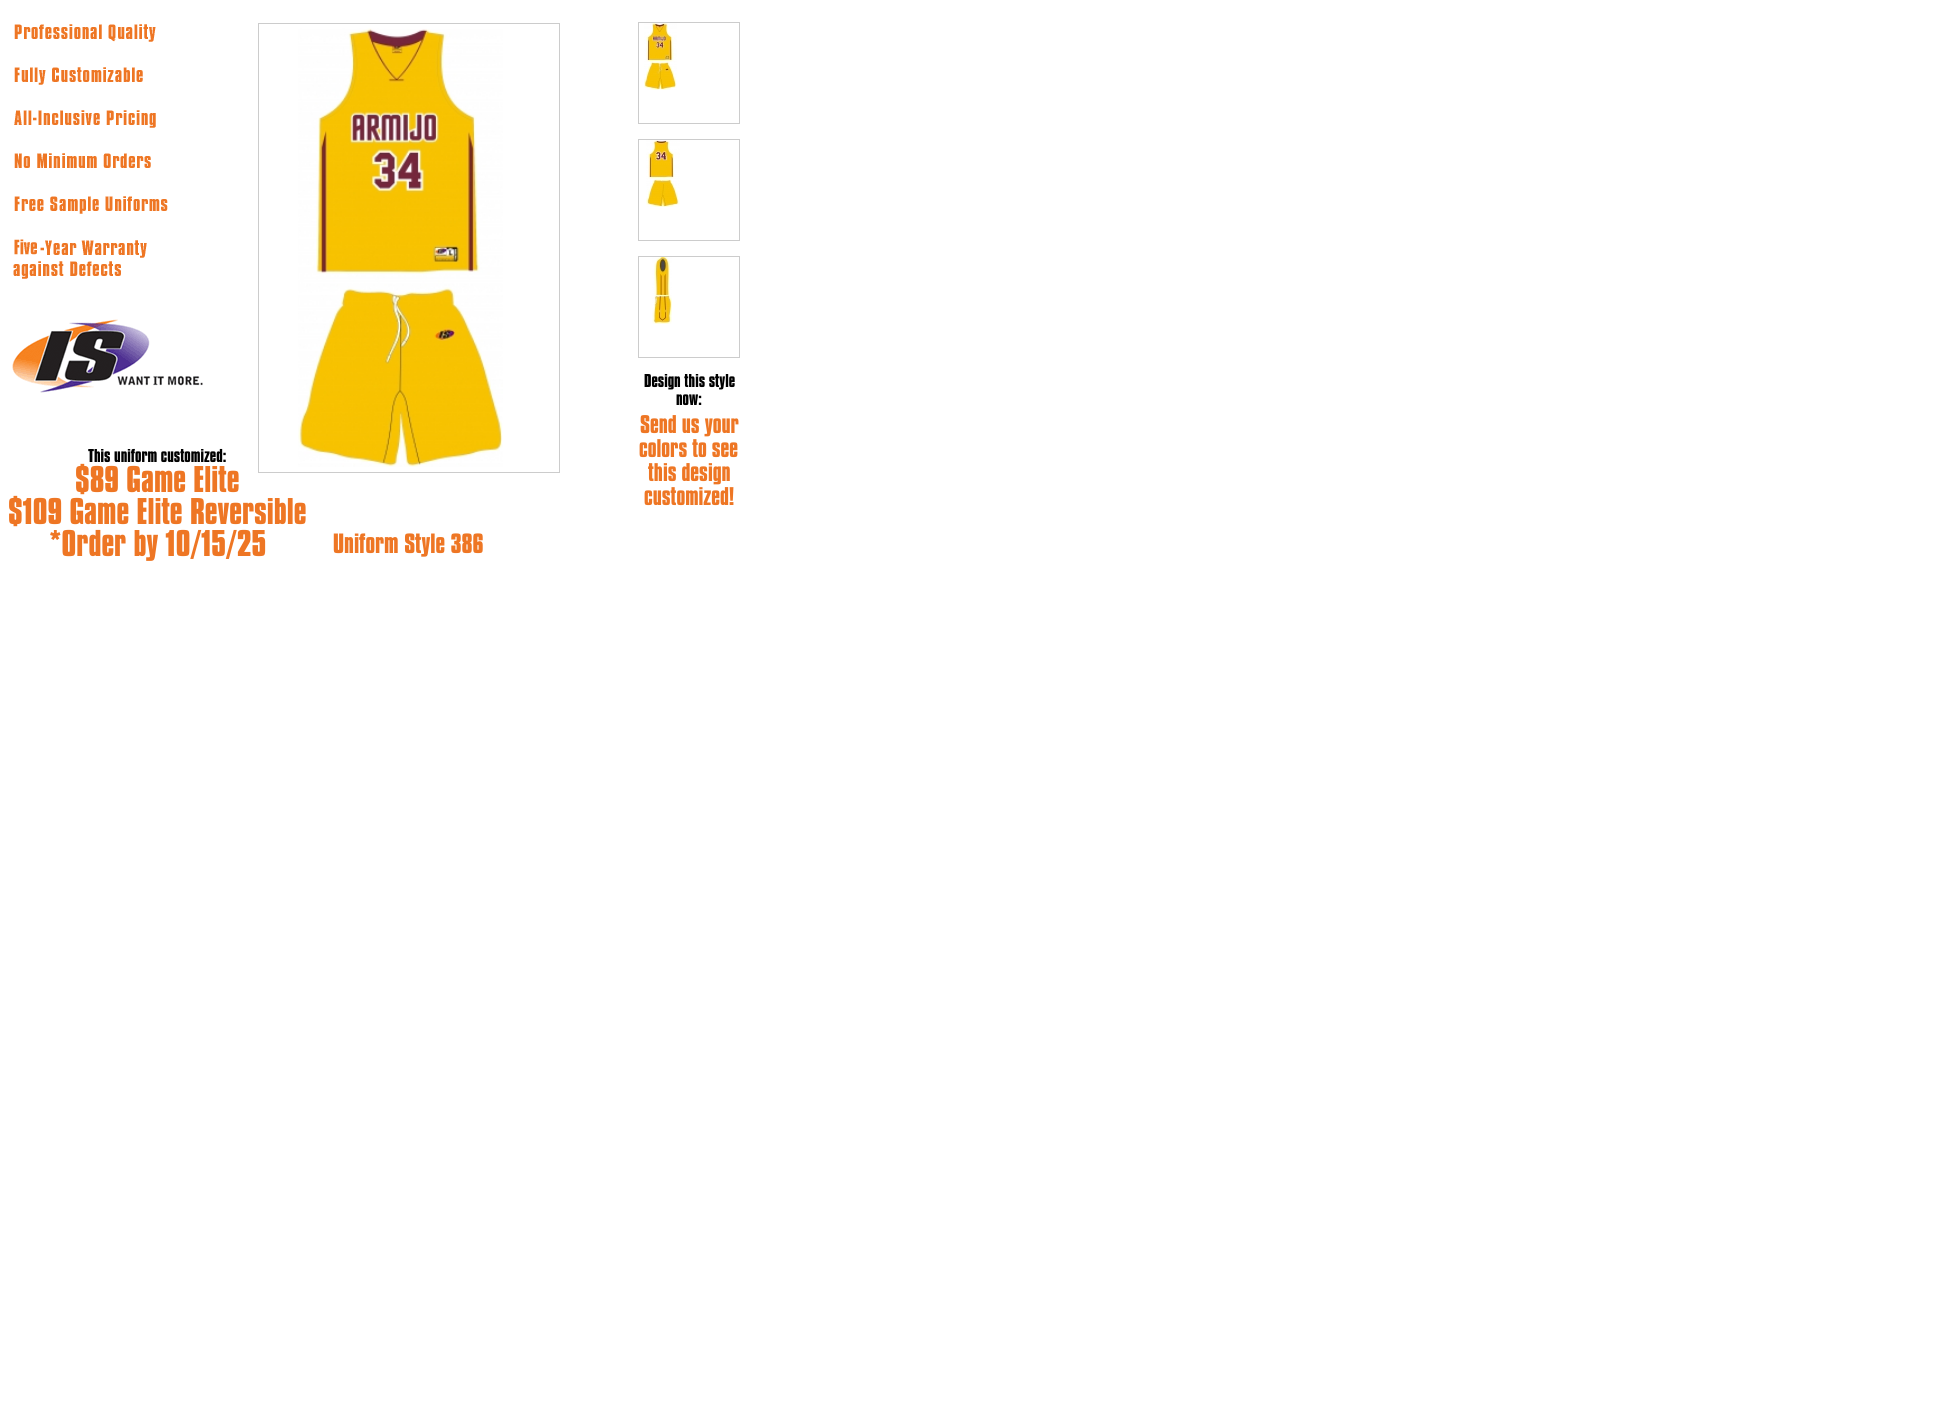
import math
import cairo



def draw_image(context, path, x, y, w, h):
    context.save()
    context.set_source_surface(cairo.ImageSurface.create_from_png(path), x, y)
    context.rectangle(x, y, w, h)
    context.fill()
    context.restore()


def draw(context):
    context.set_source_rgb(1, 1, 1)
    context.paint()
    draw_image(context, "images/1.png", 12, 24, 191, 369)
    context.rectangle(258.5, 23.5, 301, 449)
    context.set_source_rgb(204 / 255, 204 / 255, 204 / 255)
    context.set_line_width(1)
    context.stroke()
    draw_image(context, "images/2.png", 298, 28, 205, 439)
    context.rectangle(638.5, 22.5, 101, 101)
    context.stroke()
    draw_image(context, "images/3.png", 644, 23, 33, 67)
    context.rectangle(638.5, 139.5, 101, 101)
    context.stroke()
    draw_image(context, "images/4.png", 646, 140, 34, 67)
    context.rectangle(638.5, 256.5, 101, 101)
    context.stroke()
    draw_image(context, "images/5.png", 652, 257, 20, 67)
    context.select_font_face("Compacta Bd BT", cairo.FontSlant.NORMAL, cairo.FontWeight.BOLD)
    context.set_font_size(16)
    context.set_source_rgb(0, 0, 0)
    context.move_to(88, 462)
    context.show_text("This uniform customized:")
    context.set_font_size(32)
    context.set_source_rgb(238 / 255, 118 / 255, 36 / 255)
    context.move_to(75, 492)
    context.show_text("$89 Game Elite")
    context.move_to(8, 524)
    context.show_text("$109 Game Elite Reversible")
    context.move_to(49, 556)
    context.show_text("*Order by 10/15/25")
    context.set_font_size(24)
    context.move_to(333, 553)
    context.show_text("Uniform Style 386")
    context.set_font_size(16)
    context.set_source_rgb(0, 0, 0)
    context.move_to(644, 387)
    context.show_text("Design this style")
    context.move_to(676, 405)
    context.show_text("now:")
    context.set_font_size(22)
    context.set_source_rgb(238 / 255, 118 / 255, 36 / 255)
    context.move_to(640, 433)
    context.show_text("Send us your")
    context.move_to(639, 457)
    context.show_text("colors to see")
    context.move_to(648, 481)
    context.show_text("this design")
    context.move_to(644, 505)
    context.show_text("customized!")


surface = cairo.ImageSurface(cairo.Format.RGB24, 1946, 1405)
context = cairo.Context(surface)
options = cairo.FontOptions()
options.set_hint_metrics(cairo.HintMetrics.OFF)
options.set_hint_style(cairo.HintStyle.NONE)
context.set_font_options(options)
context.set_miter_limit(4)
draw(context)
surface.write_to_png("out.png")
